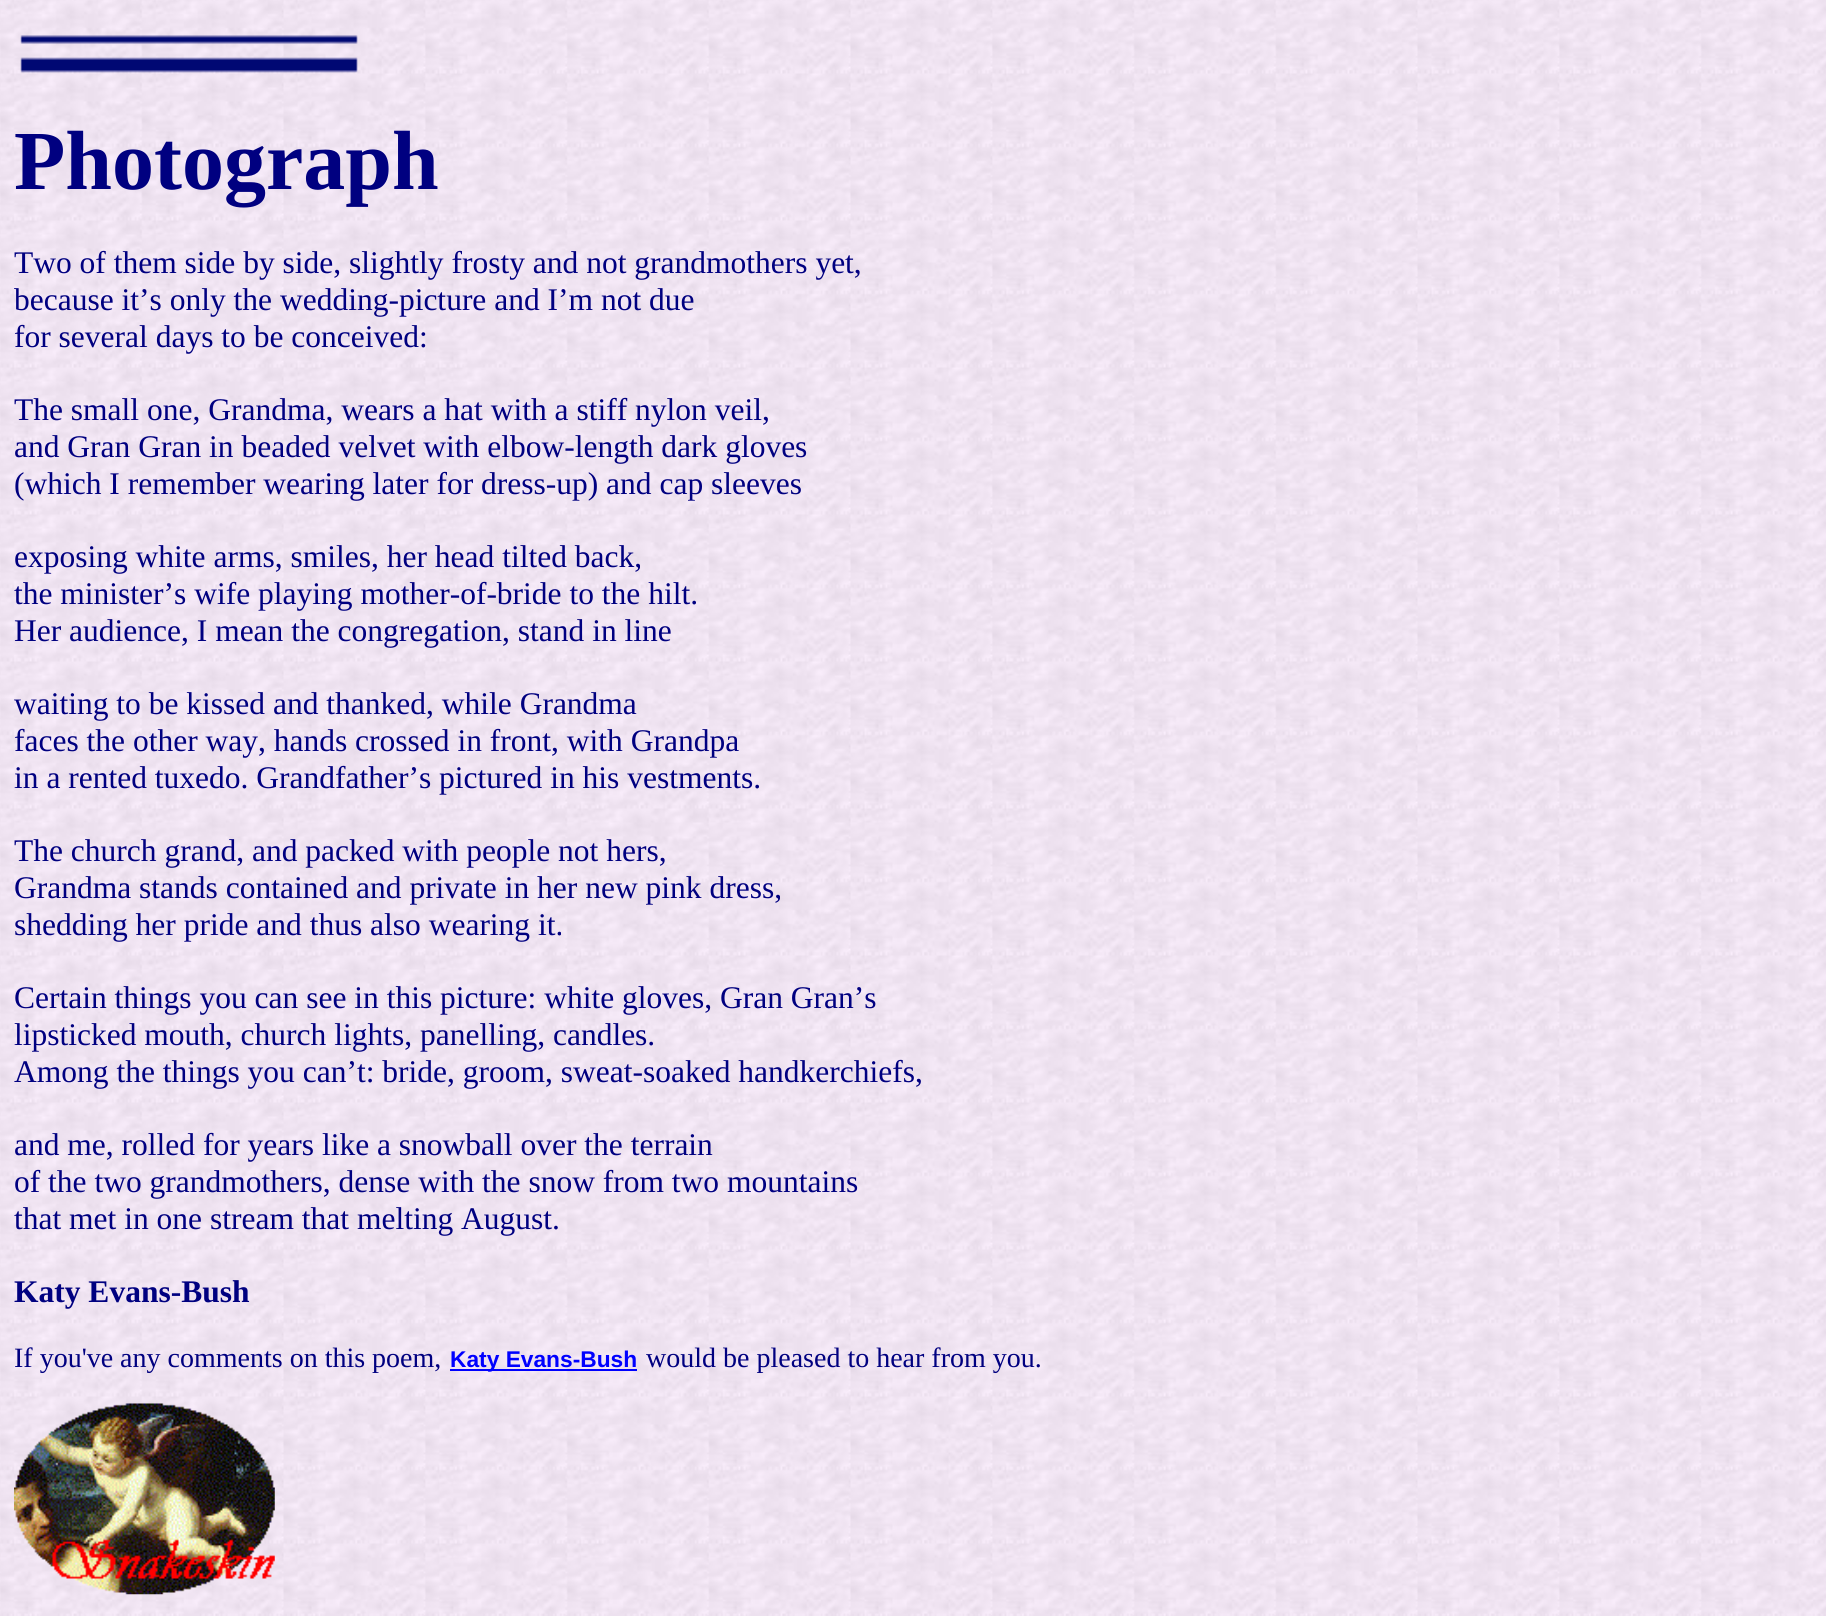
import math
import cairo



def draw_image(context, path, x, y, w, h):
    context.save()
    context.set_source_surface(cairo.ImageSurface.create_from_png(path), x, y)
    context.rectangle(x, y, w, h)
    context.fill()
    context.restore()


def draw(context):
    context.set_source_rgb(1, 1, 1)
    context.paint()
    draw_image(context, "images/1.png", 0, 0, 1826, 1616)
    draw_image(context, "images/2.png", 20, 35, 338, 38)
    context.set_source_rgb(0, 0, 1)
    context.rectangle(450, 1369, 187, 2)
    context.fill()
    draw_image(context, "images/3.png", 14, 1403, 261, 192)
    context.select_font_face("Liberation Serif", cairo.FontSlant.NORMAL, cairo.FontWeight.BOLD)
    context.set_font_size(84)
    context.set_source_rgb(0, 0, 128 / 255)
    context.move_to(14, 189)
    context.show_text("Photograph")
    context.select_font_face("Liberation Serif")
    context.set_font_size(31.5)
    context.move_to(14, 273)
    context.show_text("Two of them side by side, slightly frosty and not grandmothers yet,")
    context.move_to(14, 310)
    context.show_text("because it’s only the wedding-picture and I’m not due")
    context.move_to(14, 347)
    context.show_text("for several days to be conceived:")
    context.move_to(14, 420)
    context.show_text("The small one, Grandma, wears a hat with a stiff nylon veil,")
    context.move_to(14, 457)
    context.show_text("and Gran Gran in beaded velvet with elbow-length dark gloves")
    context.move_to(14, 494)
    context.show_text("(which I remember wearing later for dress-up) and cap sleeves")
    context.move_to(14, 567)
    context.show_text("exposing white arms, smiles, her head tilted back,")
    context.move_to(14, 604)
    context.show_text("the minister’s wife playing mother-of-bride to the hilt.")
    context.move_to(14, 641)
    context.show_text("Her audience, I mean the congregation, stand in line")
    context.move_to(14, 714)
    context.show_text("waiting to be kissed and thanked, while Grandma")
    context.move_to(14, 751)
    context.show_text("faces the other way, hands crossed in front, with Grandpa")
    context.move_to(14, 788)
    context.show_text("in a rented tuxedo. Grandfather’s pictured in his vestments.")
    context.move_to(14, 861)
    context.show_text("The church grand, and packed with people not hers,")
    context.move_to(14, 898)
    context.show_text("Grandma stands contained and private in her new pink dress,")
    context.move_to(14, 935)
    context.show_text("shedding her pride and thus also wearing it.")
    context.move_to(14, 1008)
    context.show_text("Certain things you can see in this picture: white gloves, Gran Gran’s")
    context.move_to(14, 1045)
    context.show_text("lipsticked mouth, church lights, panelling, candles.")
    context.move_to(14, 1082)
    context.show_text("Among the things you can’t: bride, groom, sweat-soaked handkerchiefs,")
    context.move_to(14, 1155)
    context.show_text("and me, rolled for years like a snowball over the terrain")
    context.move_to(14, 1192)
    context.show_text("of the two grandmothers, dense with the snow from two mountains")
    context.move_to(14, 1229)
    context.show_text("that met in one stream that melting August.")
    context.select_font_face("Liberation Serif", cairo.FontSlant.NORMAL, cairo.FontWeight.BOLD)
    context.move_to(14, 1302)
    context.show_text("Katy Evans-Bush")
    context.select_font_face("Liberation Serif")
    context.set_font_size(28)
    context.move_to(14, 1367)
    context.show_text("If you've any comments on this poem,")
    context.select_font_face("Liberation Sans", cairo.FontSlant.NORMAL, cairo.FontWeight.BOLD)
    context.set_font_size(22.75)
    context.set_source_rgb(0, 0, 1)
    context.move_to(450, 1367)
    context.show_text("Katy Evans-Bush")
    context.select_font_face("Liberation Serif")
    context.set_font_size(28)
    context.set_source_rgb(0, 0, 128 / 255)
    context.move_to(646, 1367)
    context.show_text("would be pleased to hear from you.")


surface = cairo.ImageSurface(cairo.Format.RGB24, 1826, 1616)
context = cairo.Context(surface)
options = cairo.FontOptions()
options.set_hint_metrics(cairo.HintMetrics.OFF)
options.set_hint_style(cairo.HintStyle.NONE)
context.set_font_options(options)
context.set_miter_limit(4)
draw(context)
surface.write_to_png("out.png")
